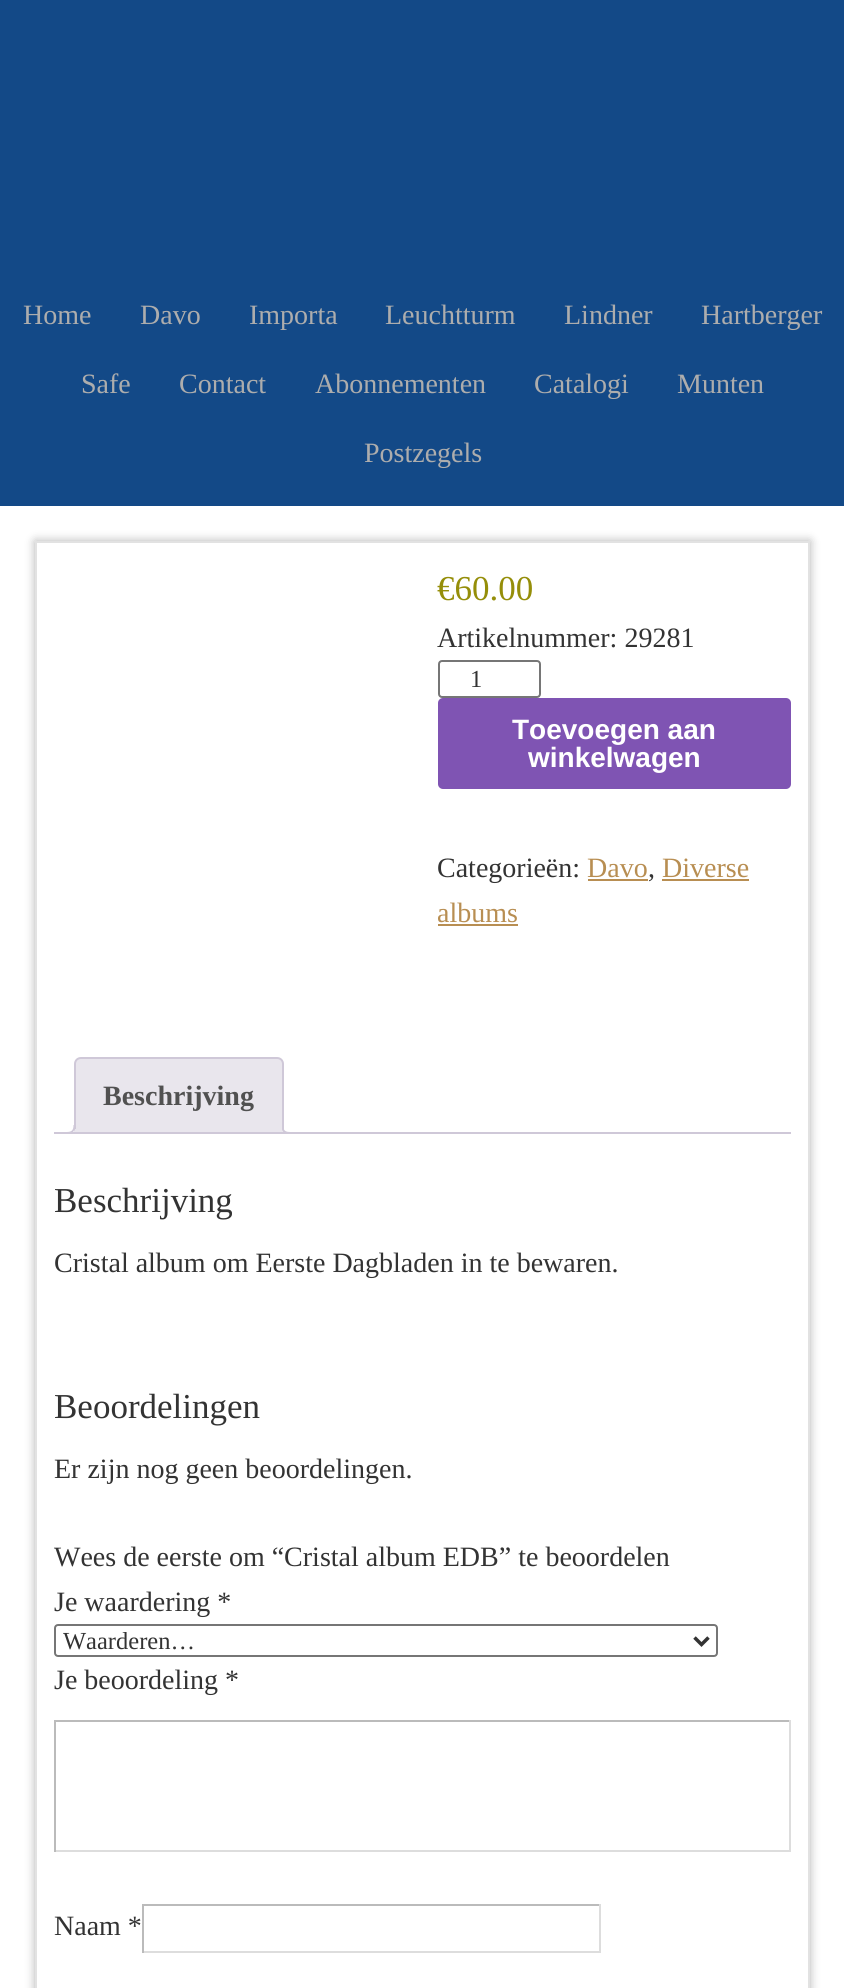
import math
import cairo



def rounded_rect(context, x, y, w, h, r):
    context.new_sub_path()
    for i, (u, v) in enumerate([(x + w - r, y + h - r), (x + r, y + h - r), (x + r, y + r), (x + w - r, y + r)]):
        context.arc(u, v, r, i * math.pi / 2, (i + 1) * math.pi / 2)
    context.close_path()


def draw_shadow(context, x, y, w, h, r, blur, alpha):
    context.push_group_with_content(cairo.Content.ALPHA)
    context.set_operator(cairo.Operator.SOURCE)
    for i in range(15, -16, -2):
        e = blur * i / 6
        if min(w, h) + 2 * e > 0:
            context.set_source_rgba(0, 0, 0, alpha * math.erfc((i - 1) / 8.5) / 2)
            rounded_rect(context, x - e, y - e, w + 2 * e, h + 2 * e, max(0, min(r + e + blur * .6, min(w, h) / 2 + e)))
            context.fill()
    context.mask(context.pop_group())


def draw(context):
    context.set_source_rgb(1, 1, 1)
    context.paint()
    context.set_source_rgb(19 / 255, 73 / 255, 135 / 255)
    context.rectangle(0, 0, 844, 506)
    context.fill()
    context.save()
    context.set_fill_rule(cairo.FillRule.EVEN_ODD)
    context.new_path()
    context.move_to(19, 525)
    context.line_to(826, 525)
    context.line_to(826, 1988)
    context.line_to(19, 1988)
    context.close_path()
    context.move_to(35, 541)
    context.line_to(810, 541)
    context.line_to(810, 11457)
    context.line_to(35, 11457)
    context.close_path()
    context.clip()
    context.set_source_rgb(0, 0, 0)
    draw_shadow(context, 35, 541, 775, 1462, 0, 5, 0.3)
    context.restore()
    context.rectangle(36, 542, 773, 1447)
    context.set_source_rgb(226 / 255, 226 / 255, 226 / 255)
    context.stroke()
    rounded_rect(context, 439, 661, 101, 36, 3)
    context.set_source_rgb(118 / 255, 118 / 255, 118 / 255)
    context.stroke()
    context.set_source_rgb(127 / 255, 84 / 255, 179 / 255)
    rounded_rect(context, 438, 698, 353, 91, 5)
    context.fill()
    context.set_source_rgb(184 / 255, 142 / 255, 82 / 255)
    context.rectangle(588, 879, 60, 2)
    context.fill()
    context.rectangle(662, 879, 87, 2)
    context.fill()
    context.rectangle(438, 924, 80, 2)
    context.fill()
    context.set_source_rgb(233 / 255, 230 / 255, 237 / 255)
    context.new_path()
    context.move_to(81, 1058)
    context.line_to(277, 1058)
    context.curve_to(280.5, 1058, 283, 1060.5, 283, 1064)
    context.line_to(283, 1133)
    context.line_to(75, 1133)
    context.line_to(75, 1064)
    context.curve_to(75, 1060.5, 77.5, 1058, 81, 1058)
    context.close_path()
    context.fill_preserve()
    context.set_source_rgb(207 / 255, 200 / 255, 216 / 255)
    context.stroke()
    context.save()
    context.rectangle(54, 1057, 737, 77)
    context.clip()
    context.set_source_rgb(233 / 255, 230 / 255, 237 / 255)
    context.new_path()
    context.move_to(70, 1134)
    context.line_to(70, 1138)
    context.curve_to(76.5, 1138, 79, 1135.5, 79, 1129)
    context.line_to(75, 1129)
    context.curve_to(74.5, 1131.5, 72.5, 1133, 70, 1134)
    context.close_path()
    context.fill()
    context.restore()
    context.set_fill_rule(cairo.FillRule.EVEN_ODD)
    context.new_path()
    context.move_to(66.5, 1125)
    context.line_to(75, 1125)
    context.curve_to(75, 1131.5, 72.5, 1134, 66.5, 1134)
    context.close_path()
    context.move_to(66.5, 1125)
    context.line_to(73.5, 1125)
    context.curve_to(73.5, 1130.5, 71.5, 1132, 66.5, 1132)
    context.close_path()
    context.fill()
    context.save()
    context.set_fill_rule(cairo.FillRule.WINDING)
    context.rectangle(54, 1057, 737, 77)
    context.clip()
    context.set_source_rgb(233 / 255, 230 / 255, 237 / 255)
    context.new_path()
    context.move_to(278, 1129)
    context.curve_to(278, 1135.5, 280.5, 1138, 287, 1138)
    context.line_to(287, 1134)
    context.curve_to(284.5, 1133, 282.5, 1131.5, 282, 1129)
    context.close_path()
    context.fill()
    context.restore()
    context.new_path()
    context.move_to(282, 1125)
    context.line_to(290.5, 1125)
    context.line_to(290.5, 1134)
    context.curve_to(286, 1134, 282, 1132.5, 282, 1127)
    context.close_path()
    context.move_to(283.5, 1125)
    context.line_to(290.5, 1125)
    context.line_to(290.5, 1132)
    context.curve_to(287, 1132, 283.5, 1131.5, 283.5, 1127)
    context.close_path()
    context.fill()
    context.rectangle(54, 1132, 737, 2)
    context.fill()
    rounded_rect(context, 55, 1625, 662, 31, 3)
    context.set_source_rgb(118 / 255, 118 / 255, 118 / 255)
    context.stroke()
    context.new_path()
    context.move_to(694.5, 1637.5)
    context.line_to(701.5, 1644.5)
    context.line_to(708.5, 1637.5)
    context.set_source_rgb(51 / 255, 51 / 255, 51 / 255)
    context.set_line_width(3.5)
    context.stroke()
    context.set_source_rgb(187 / 255, 187 / 255, 187 / 255)
    context.rectangle(54, 1720, 737, 2)
    context.fill()
    context.set_source_rgb(221 / 255, 221 / 255, 221 / 255)
    context.rectangle(789, 1720, 2, 132)
    context.fill()
    context.rectangle(54, 1850, 737, 2)
    context.fill()
    context.set_source_rgb(187 / 255, 187 / 255, 187 / 255)
    context.rectangle(54, 1720, 2, 132)
    context.fill()
    context.rectangle(142, 1904, 458, 2)
    context.fill()
    context.set_source_rgb(221 / 255, 221 / 255, 221 / 255)
    context.rectangle(599, 1904, 2, 49)
    context.fill()
    context.rectangle(142, 1951, 458, 2)
    context.fill()
    context.set_source_rgb(187 / 255, 187 / 255, 187 / 255)
    context.rectangle(142, 1904, 2, 49)
    context.fill()
    context.select_font_face("Liberation Serif")
    context.set_font_size(28)
    context.set_source_rgb(173 / 255, 173 / 255, 173 / 255)
    context.move_to(23, 324)
    context.show_text("Home")
    context.move_to(140, 324)
    context.show_text("Davo")
    context.move_to(249, 324)
    context.show_text("Importa")
    context.move_to(385, 324)
    context.show_text("Leuchtturm")
    context.move_to(564, 324)
    context.show_text("Lindner")
    context.move_to(701, 324)
    context.show_text("Hartberger")
    context.move_to(81, 393)
    context.show_text("Safe")
    context.move_to(179, 393)
    context.show_text("Contact")
    context.move_to(315, 393)
    context.show_text("Abonnementen")
    context.move_to(534, 393)
    context.show_text("Catalogi")
    context.move_to(677, 393)
    context.show_text("Munten")
    context.move_to(364, 462)
    context.show_text("Postzegels")
    context.set_font_size(35)
    context.set_source_rgb(149 / 255, 142 / 255, 9 / 255)
    context.move_to(437, 600)
    context.show_text("€60.00")
    context.set_font_size(28)
    context.set_source_rgb(51 / 255, 51 / 255, 51 / 255)
    context.move_to(437, 647)
    context.show_text("Artikelnummer: 29281")
    context.set_font_size(24.5)
    context.move_to(470, 687)
    context.show_text("1")
    context.select_font_face("Liberation Sans", cairo.FontSlant.NORMAL, cairo.FontWeight.BOLD)
    context.set_font_size(28)
    context.set_source_rgb(1, 1, 1)
    context.move_to(512, 739)
    context.show_text("Toevoegen aan")
    context.move_to(528, 767)
    context.show_text("winkelwagen")
    context.select_font_face("Liberation Serif")
    context.set_source_rgb(51 / 255, 51 / 255, 51 / 255)
    context.move_to(437, 877)
    context.show_text("Categorieën:")
    context.set_source_rgb(184 / 255, 142 / 255, 82 / 255)
    context.move_to(587, 877)
    context.show_text("Davo")
    context.set_source_rgb(51 / 255, 51 / 255, 51 / 255)
    context.move_to(648, 877)
    context.show_text(",")
    context.set_source_rgb(184 / 255, 142 / 255, 82 / 255)
    context.move_to(662, 877)
    context.show_text("Diverse")
    context.move_to(437, 922)
    context.show_text("albums")
    context.select_font_face("Liberation Serif", cairo.FontSlant.NORMAL, cairo.FontWeight.BOLD)
    context.set_source_rgb(81 / 255, 81 / 255, 81 / 255)
    context.move_to(103, 1105)
    context.show_text("Beschrijving")
    context.select_font_face("Liberation Serif")
    context.set_font_size(35)
    context.set_source_rgb(51 / 255, 51 / 255, 51 / 255)
    context.move_to(54, 1212)
    context.show_text("Beschrijving")
    context.set_font_size(28)
    context.move_to(54, 1272)
    context.show_text("Cristal album om Eerste Dagbladen in te bewaren.")
    context.set_font_size(35)
    context.move_to(54, 1418)
    context.show_text("Beoordelingen")
    context.set_font_size(28)
    context.move_to(54, 1478)
    context.show_text("Er zijn nog geen beoordelingen.")
    context.move_to(54, 1566)
    context.show_text("Wees de eerste om “Cristal album EDB” te beoordelen")
    context.move_to(54, 1611)
    context.show_text("Je waardering *")
    context.set_font_size(24.5)
    context.move_to(63, 1649)
    context.show_text("Waarderen…")
    context.set_font_size(28)
    context.move_to(54, 1689)
    context.show_text("Je beoordeling *")
    context.move_to(54, 1935)
    context.show_text("Naam *")


surface = cairo.ImageSurface(cairo.Format.RGB24, 844, 1988)
context = cairo.Context(surface)
options = cairo.FontOptions()
options.set_hint_metrics(cairo.HintMetrics.OFF)
options.set_hint_style(cairo.HintStyle.NONE)
context.set_font_options(options)
context.set_miter_limit(4)
draw(context)
surface.write_to_png("out.png")
